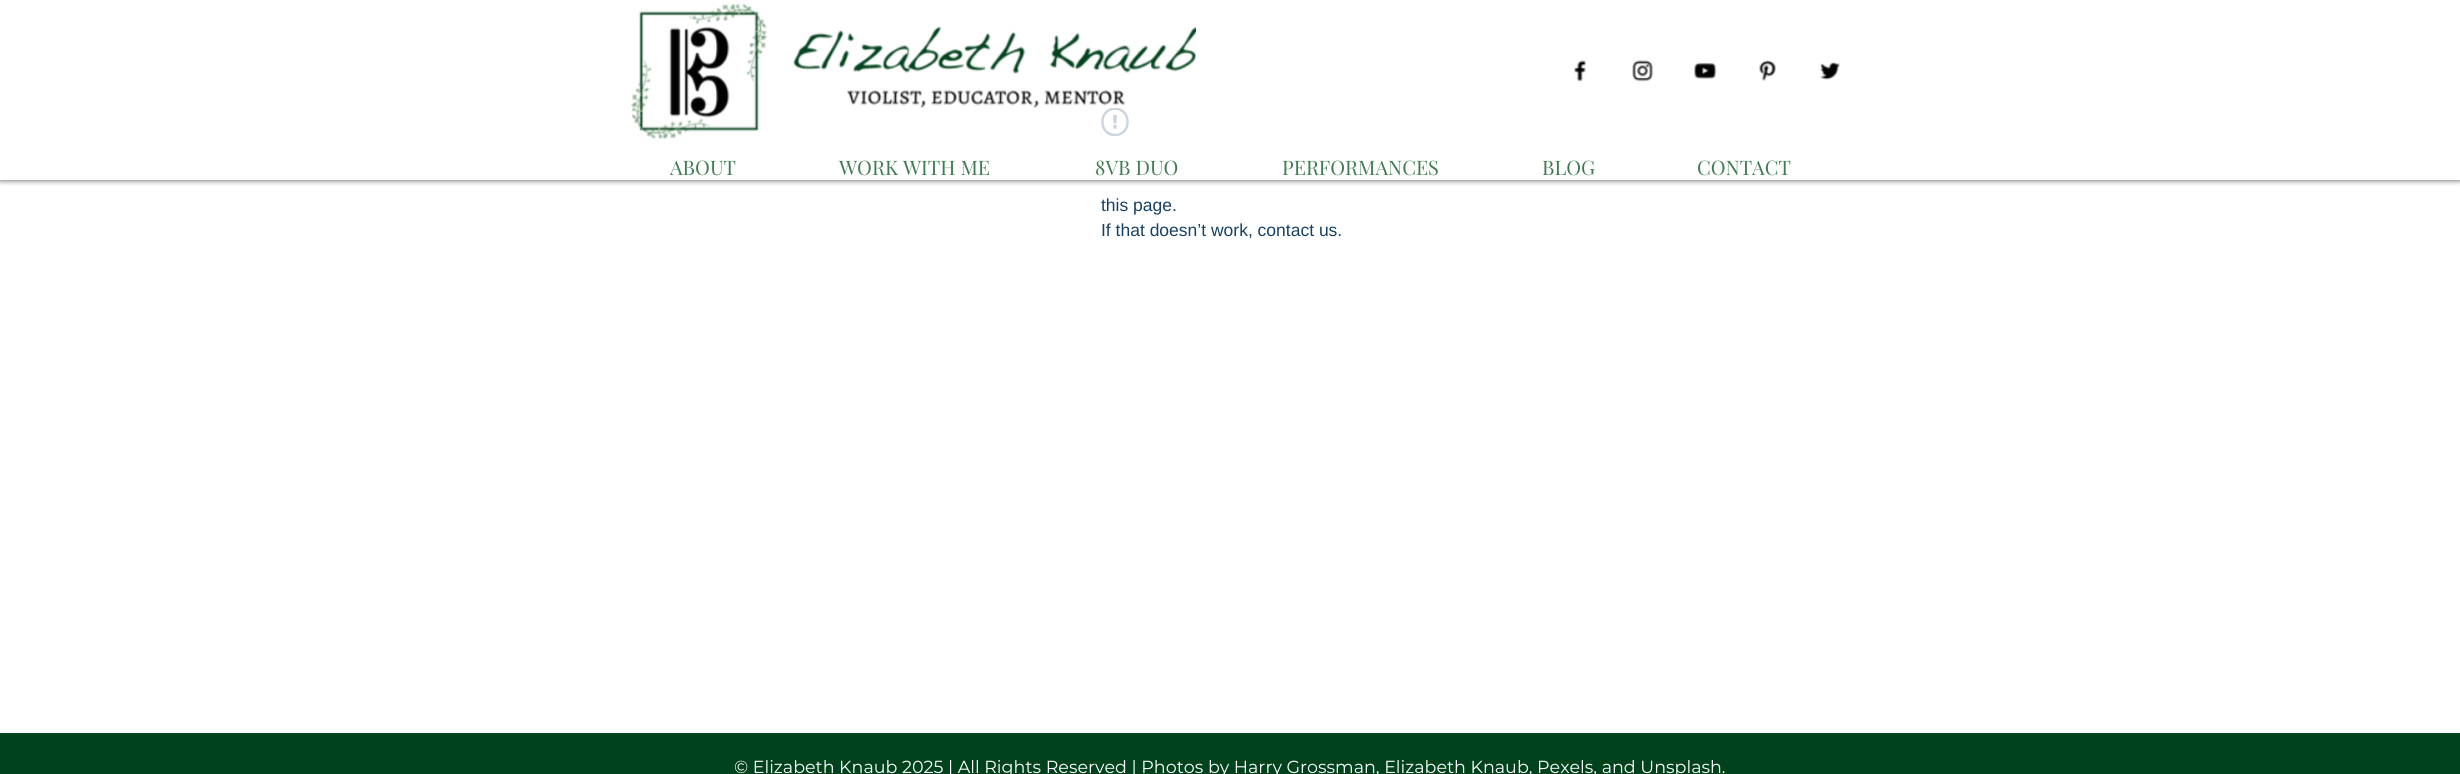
import math
import cairo



def rounded_rect(context, x, y, w, h, r):
    context.new_sub_path()
    for i, (u, v) in enumerate([(x + w - r, y + h - r), (x + r, y + h - r), (x + r, y + r), (x + w - r, y + r)]):
        context.arc(u, v, r, i * math.pi / 2, (i + 1) * math.pi / 2)
    context.close_path()


def draw_shadow(context, x, y, w, h, r, blur, alpha):
    context.push_group_with_content(cairo.Content.ALPHA)
    context.set_operator(cairo.Operator.SOURCE)
    for i in range(15, -16, -2):
        e = blur * i / 6
        if min(w, h) + 2 * e > 0:
            context.set_source_rgba(0, 0, 0, alpha * math.erfc((i - 1) / 8.5) / 2)
            rounded_rect(context, x - e, y - e, w + 2 * e, h + 2 * e, max(0, min(r + e + blur * .6, min(w, h) / 2 + e)))
            context.fill()
    context.mask(context.pop_group())


def draw_image(context, path, x, y, w, h):
    context.save()
    context.set_source_surface(cairo.ImageSurface.create_from_png(path), x, y)
    context.rectangle(x, y, w, h)
    context.fill()
    context.restore()


def draw(context):
    context.set_source_rgb(1, 1, 1)
    context.paint()
    draw_image(context, "images/7.png", 1101, 108, 28, 28)
    context.save()
    context.rectangle(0, 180, 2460, 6)
    context.clip()
    context.set_source_rgb(0, 0, 0)
    draw_shadow(context, 0, 0, 2460, 180, 0, 3, 0.7)
    context.restore()
    context.set_source_rgba(1, 1, 1, 0.78)
    context.rectangle(1101, 108, 28, 28)
    context.fill()
    draw_image(context, "images/1.png", 631, 3, 565, 136)
    draw_image(context, "images/2.png", 1574, 60, 12, 22)
    draw_image(context, "images/3.png", 1632, 60, 22, 22)
    draw_image(context, "images/4.png", 1694, 62, 23, 17)
    draw_image(context, "images/5.png", 1759, 60, 17, 21)
    draw_image(context, "images/6.png", 1820, 62, 20, 18)
    context.set_source_rgb(0, 66 / 255, 28 / 255)
    context.rectangle(0, 733, 2460, 41)
    context.fill()
    context.select_font_face("Playfair Display")
    context.set_font_size(20)
    context.set_source_rgb(64 / 255, 124 / 255, 81 / 255)
    context.move_to(670, 175)
    context.show_text("ABOUT")
    context.move_to(839, 175)
    context.show_text("WORK WITH ME")
    context.move_to(1095, 175)
    context.show_text("8VB DUO")
    context.move_to(1282, 175)
    context.show_text("PERFORMANCES")
    context.move_to(1542, 175)
    context.show_text("BLOG")
    context.move_to(1697, 175)
    context.show_text("CONTACT")
    context.select_font_face("Liberation Sans")
    context.set_font_size(17.5)
    context.set_source_rgb(23 / 255, 65 / 255, 101 / 255)
    context.move_to(1101, 211)
    context.show_text("this page.")
    context.move_to(1101, 236)
    context.show_text("If that doesn’t work, contact us.")
    context.select_font_face("Montserrat")
    context.set_source_rgb(1, 1, 1)
    context.move_to(734, 773)
    context.show_text("© Elizabeth Knaub 2025 | All Rights Reserved | Photos by Harry Grossman, Elizabeth Knaub, Pexels, and Unsplash.")


surface = cairo.ImageSurface(cairo.Format.RGB24, 2460, 774)
context = cairo.Context(surface)
options = cairo.FontOptions()
options.set_hint_metrics(cairo.HintMetrics.OFF)
options.set_hint_style(cairo.HintStyle.NONE)
context.set_font_options(options)
context.set_miter_limit(4)
draw(context)
surface.write_to_png("out.png")
